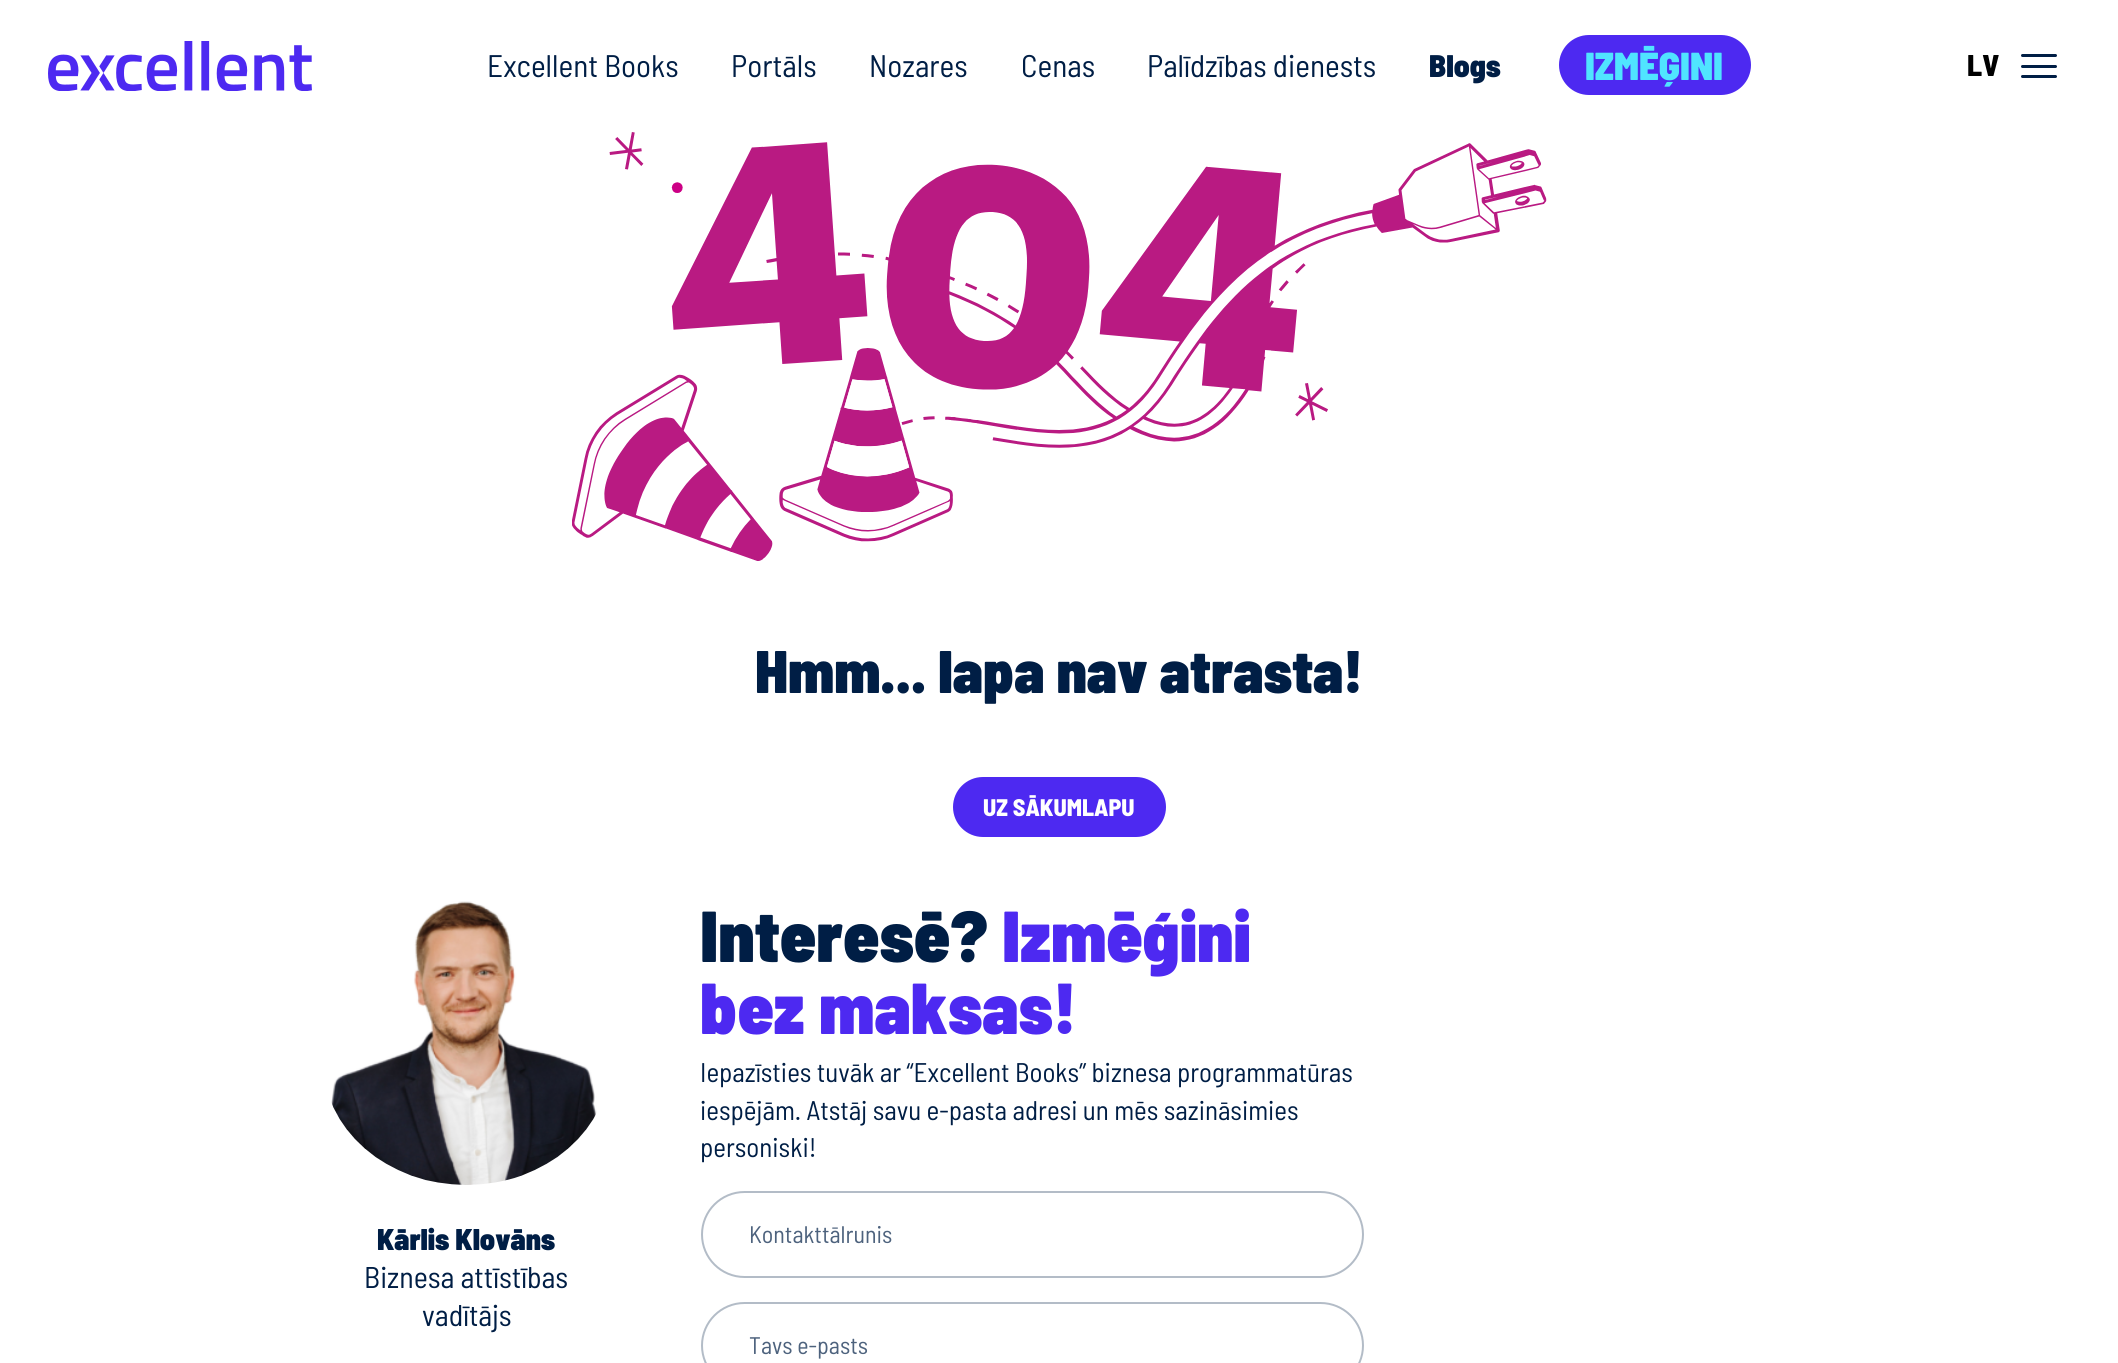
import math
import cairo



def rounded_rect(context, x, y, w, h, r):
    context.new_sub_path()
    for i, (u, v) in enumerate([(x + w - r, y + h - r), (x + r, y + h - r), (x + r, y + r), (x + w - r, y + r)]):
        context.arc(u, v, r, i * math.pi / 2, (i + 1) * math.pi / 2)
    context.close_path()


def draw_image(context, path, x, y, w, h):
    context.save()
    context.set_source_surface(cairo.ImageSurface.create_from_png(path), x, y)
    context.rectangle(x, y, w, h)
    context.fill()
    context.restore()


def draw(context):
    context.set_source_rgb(1, 1, 1)
    context.paint()
    draw_image(context, "images/1.png", 48, 41, 264, 50)
    context.set_source_rgb(77 / 255, 41 / 255, 241 / 255)
    rounded_rect(context, 1560.5, 36.5, 189, 57, 28.5)
    context.fill_preserve()
    context.set_line_width(3)
    context.stroke()
    context.set_source_rgb(0, 30 / 255, 69 / 255)
    rounded_rect(context, 2021, 54, 36, 3, 1.5)
    context.fill()
    rounded_rect(context, 2021, 65, 36, 3, 1.5)
    context.fill()
    rounded_rect(context, 2021, 75, 36, 3, 1.5)
    context.fill()
    draw_image(context, "images/2.png", 572, 132, 975, 429)
    context.set_source_rgb(77 / 255, 41 / 255, 241 / 255)
    rounded_rect(context, 954.5, 778.5, 210, 57, 28.5)
    context.fill_preserve()
    context.stroke()
    draw_image(context, "images/3.png", 331, 901, 266, 284)
    rounded_rect(context, 702, 1192, 661, 85, 42.5)
    context.set_source_rgb(179 / 255, 188 / 255, 199 / 255)
    context.set_line_width(2)
    context.stroke()
    rounded_rect(context, 702, 1303, 661, 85, 42.5)
    context.stroke()
    context.select_font_face("Barlow Semi Condensed")
    context.set_font_size(31.25)
    context.set_source_rgb(0, 30 / 255, 69 / 255)
    context.move_to(487, 77)
    context.show_text("Excellent Books")
    context.move_to(731, 77)
    context.show_text("Portāls")
    context.move_to(869, 77)
    context.show_text("Nozares")
    context.move_to(1021, 77)
    context.show_text("Cenas")
    context.move_to(1147, 77)
    context.show_text("Palīdzības dienests")
    context.select_font_face("Barlow Semi Condensed Black")
    context.move_to(1429, 77)
    context.show_text("Blogs")
    context.set_font_size(39)
    context.set_source_rgb(80 / 255, 228 / 255, 1)
    context.move_to(1585, 80)
    context.show_text("IZMĒĢINI")
    context.select_font_face("Barlow Semi Condensed ExtraBold")
    context.set_font_size(30)
    context.set_source_rgb(0, 0, 0)
    context.move_to(1967, 76)
    context.show_text("LV")
    context.select_font_face("Barlow Semi Condensed Black")
    context.set_font_size(60)
    context.set_source_rgb(0, 30 / 255, 69 / 255)
    context.move_to(755, 693)
    context.show_text("Hmm... lapa nav atrasta!")
    context.select_font_face("Barlow Semi Condensed ExtraBold")
    context.set_font_size(24)
    context.set_source_rgb(1, 1, 1)
    context.move_to(983, 816)
    context.show_text("UZ SĀKUMLAPU")
    context.select_font_face("Barlow Semi Condensed Black")
    context.set_font_size(30)
    context.set_source_rgb(0, 30 / 255, 69 / 255)
    context.move_to(377, 1250)
    context.show_text("Kārlis Klovāns")
    context.select_font_face("Barlow Semi Condensed")
    context.move_to(364, 1288)
    context.show_text("Biznesa attīstības")
    context.move_to(422, 1326)
    context.show_text("vadītājs")
    context.select_font_face("Barlow Semi Condensed Black")
    context.set_font_size(72)
    context.move_to(700, 962)
    context.show_text("Interesē?")
    context.set_source_rgb(77 / 255, 41 / 255, 241 / 255)
    context.move_to(1002, 962)
    context.show_text("Izmēģini")
    context.move_to(700, 1034)
    context.show_text("bez maksas!")
    context.select_font_face("Barlow Semi Condensed")
    context.set_font_size(27)
    context.set_source_rgb(0, 30 / 255, 69 / 255)
    context.move_to(700, 1082)
    context.show_text("Iepazīsties tuvāk ar “Excellent Books” biznesa programmatūras")
    context.move_to(700, 1120)
    context.show_text("iespējām. Atstāj savu e-pasta adresi un mēs sazināsimies")
    context.move_to(700, 1157)
    context.show_text("personiski!")
    context.set_font_size(24)
    context.set_source_rgb(77 / 255, 98 / 255, 125 / 255)
    context.move_to(749, 1243)
    context.show_text("Kontakttālrunis")
    context.move_to(749, 1354)
    context.show_text("Tavs e-pasts")


surface = cairo.ImageSurface(cairo.Format.RGB24, 2118, 1363)
context = cairo.Context(surface)
options = cairo.FontOptions()
options.set_hint_metrics(cairo.HintMetrics.OFF)
options.set_hint_style(cairo.HintStyle.NONE)
context.set_font_options(options)
context.set_miter_limit(4)
draw(context)
surface.write_to_png("out.png")
